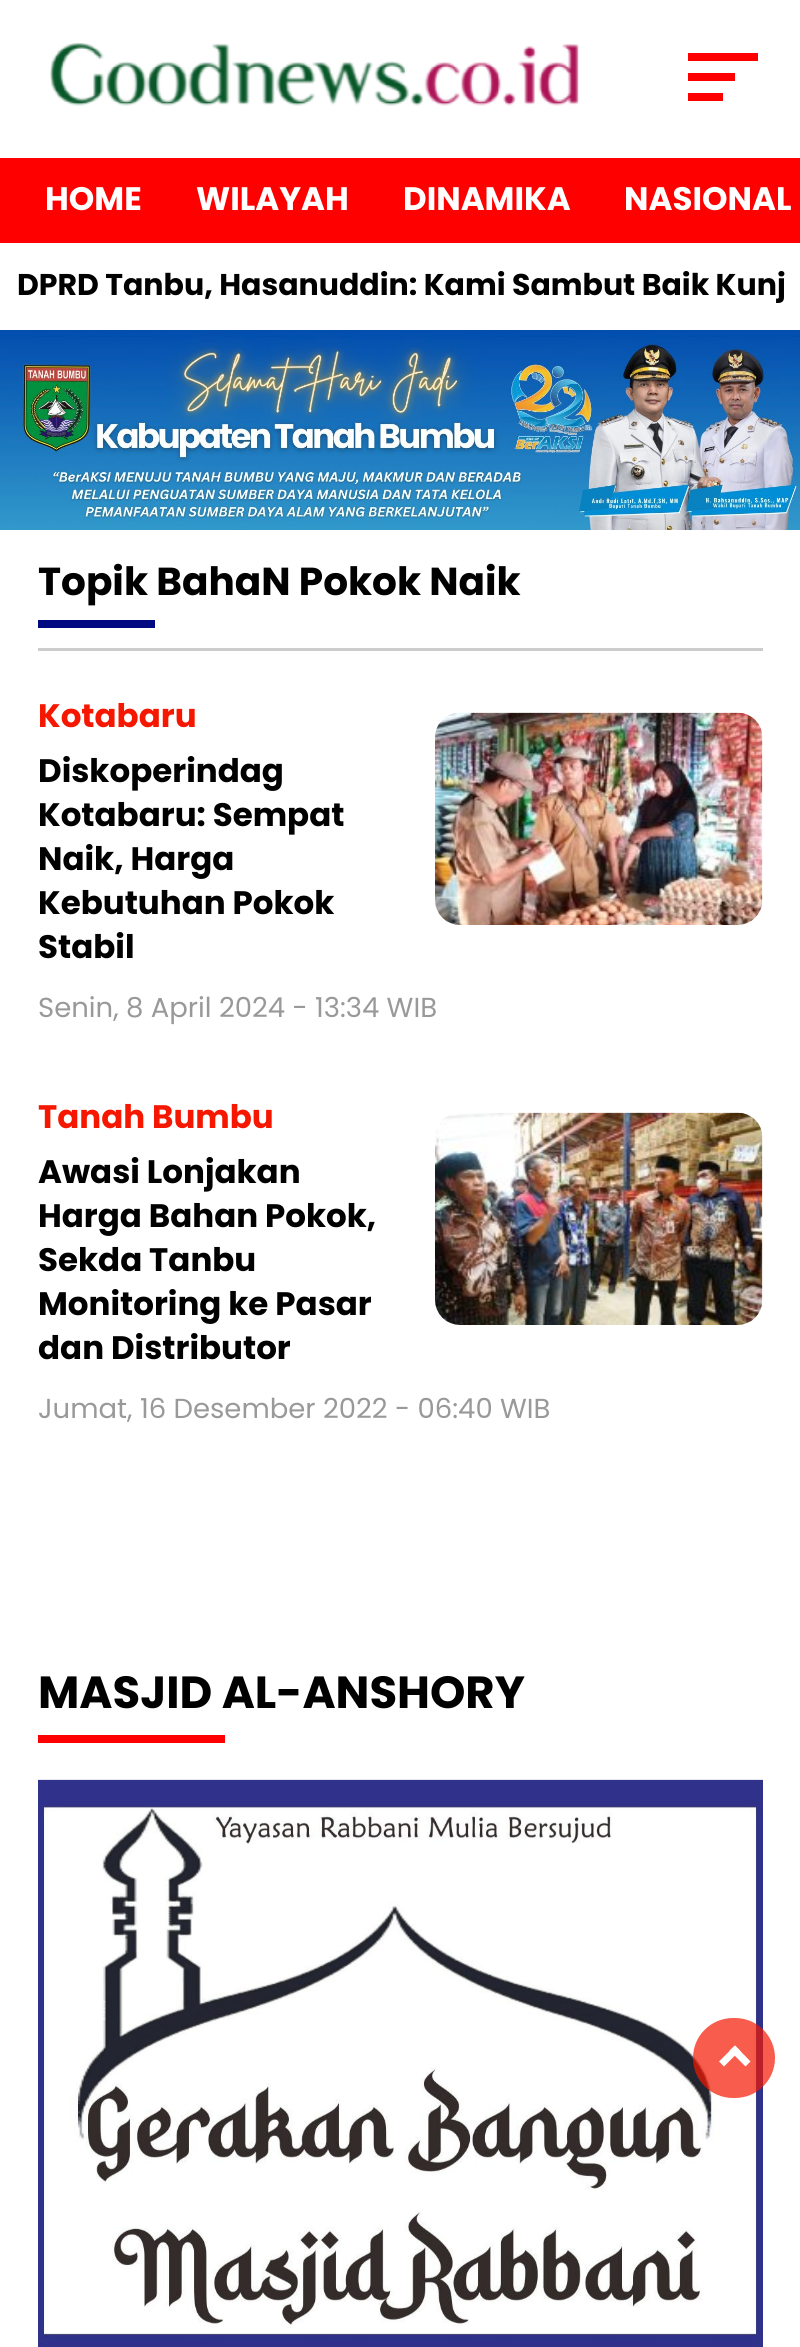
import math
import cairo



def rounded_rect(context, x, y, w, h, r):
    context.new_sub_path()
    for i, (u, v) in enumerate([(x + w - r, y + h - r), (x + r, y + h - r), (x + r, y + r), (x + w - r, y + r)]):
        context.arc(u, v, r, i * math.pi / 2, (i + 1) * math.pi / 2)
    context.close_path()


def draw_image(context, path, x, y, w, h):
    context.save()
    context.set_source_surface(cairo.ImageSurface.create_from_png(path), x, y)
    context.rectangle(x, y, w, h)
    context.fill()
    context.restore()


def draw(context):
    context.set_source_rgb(1, 1, 1)
    context.paint()
    draw_image(context, "images/1.png", 50, 43, 530, 63)
    context.set_source_rgb(1, 0, 0)
    context.rectangle(688, 53, 70, 8)
    context.fill()
    context.rectangle(688, 73, 47, 8)
    context.fill()
    context.rectangle(688, 93, 35, 8)
    context.fill()
    context.rectangle(0, 158, 800, 85)
    context.fill()
    draw_image(context, "images/2.png", 0, 330, 800, 200)
    context.set_source_rgb(204 / 255, 204 / 255, 204 / 255)
    context.rectangle(38, 648, 725, 3)
    context.fill()
    context.set_source_rgb(1 / 255, 10 / 255, 128 / 255)
    context.rectangle(38, 620, 117, 8)
    context.fill()
    draw_image(context, "images/3.png", 435, 712, 328, 213)
    draw_image(context, "images/4.png", 435, 1112, 328, 213)
    context.set_source_rgb(1, 0, 0)
    context.rectangle(38, 1735, 187, 8)
    context.fill()
    draw_image(context, "images/5.png", 38, 1779, 725, 568)
    context.set_source_rgba(245 / 255, 23 / 255, 0, 0.7)
    rounded_rect(context, 693, 2018, 82, 80, 40)
    context.fill()
    context.set_source_rgb(1, 1, 1)
    context.new_path()
    context.move_to(724, 2066.5)
    context.line_to(719, 2061.5)
    context.line_to(735, 2045.5)
    context.line_to(740, 2050.5)
    context.close_path()
    context.fill()
    context.new_path()
    context.move_to(745.5, 2066.5)
    context.line_to(729.5, 2050.5)
    context.line_to(735, 2045.5)
    context.line_to(750.5, 2061.5)
    context.close_path()
    context.fill()
    context.select_font_face("Poppins", cairo.FontSlant.NORMAL, cairo.FontWeight.BOLD)
    context.set_font_size(32.5)
    context.move_to(45, 210)
    context.show_text("HOME")
    context.move_to(196, 210)
    context.show_text("WILAYAH")
    context.move_to(403, 210)
    context.show_text("DINAMIKA")
    context.move_to(624, 210)
    context.show_text("NASIONAL")
    context.set_font_size(30)
    context.set_source_rgb(0, 0, 0)
    context.move_to(17, 295)
    context.show_text("DPRD Tanbu, Hasanuddin: Kami Sambut Baik Kunj")
    context.set_font_size(39)
    context.move_to(38, 595)
    context.show_text("Topik BahaN Pokok Naik")
    context.set_font_size(32.5)
    context.set_source_rgb(245 / 255, 23 / 255, 0)
    context.move_to(38, 727)
    context.show_text("Kotabaru")
    context.set_source_rgb(0, 0, 0)
    context.move_to(38, 782)
    context.show_text("Diskoperindag")
    context.move_to(38, 826)
    context.show_text("Kotabaru: Sempat")
    context.move_to(38, 870)
    context.show_text("Naik, Harga")
    context.move_to(38, 914)
    context.show_text("Kebutuhan Pokok")
    context.move_to(38, 958)
    context.show_text("Stabil")
    context.select_font_face("Poppins")
    context.set_font_size(27.5)
    context.set_source_rgb(153 / 255, 153 / 255, 153 / 255)
    context.move_to(38, 1017)
    context.show_text("Senin, 8 April 2024 - 13:34 WIB")
    context.select_font_face("Poppins", cairo.FontSlant.NORMAL, cairo.FontWeight.BOLD)
    context.set_font_size(32.5)
    context.set_source_rgb(245 / 255, 23 / 255, 0)
    context.move_to(38, 1128)
    context.show_text("Tanah Bumbu")
    context.set_source_rgb(0, 0, 0)
    context.move_to(38, 1183)
    context.show_text("Awasi Lonjakan")
    context.move_to(38, 1227)
    context.show_text("Harga Bahan Pokok,")
    context.move_to(38, 1271)
    context.show_text("Sekda Tanbu")
    context.move_to(38, 1315)
    context.show_text("Monitoring ke Pasar")
    context.move_to(38, 1359)
    context.show_text("dan Distributor")
    context.select_font_face("Poppins")
    context.set_font_size(27.5)
    context.set_source_rgb(153 / 255, 153 / 255, 153 / 255)
    context.move_to(38, 1418)
    context.show_text("Jumat, 16 Desember 2022 - 06:40 WIB")
    context.select_font_face("Poppins", cairo.FontSlant.NORMAL, cairo.FontWeight.BOLD)
    context.set_font_size(45)
    context.set_source_rgb(0, 0, 0)
    context.move_to(38, 1708)
    context.show_text("MASJID AL-ANSHORY")


surface = cairo.ImageSurface(cairo.Format.RGB24, 800, 2347)
context = cairo.Context(surface)
options = cairo.FontOptions()
options.set_hint_metrics(cairo.HintMetrics.OFF)
options.set_hint_style(cairo.HintStyle.NONE)
context.set_font_options(options)
context.set_miter_limit(4)
draw(context)
surface.write_to_png("out.png")
